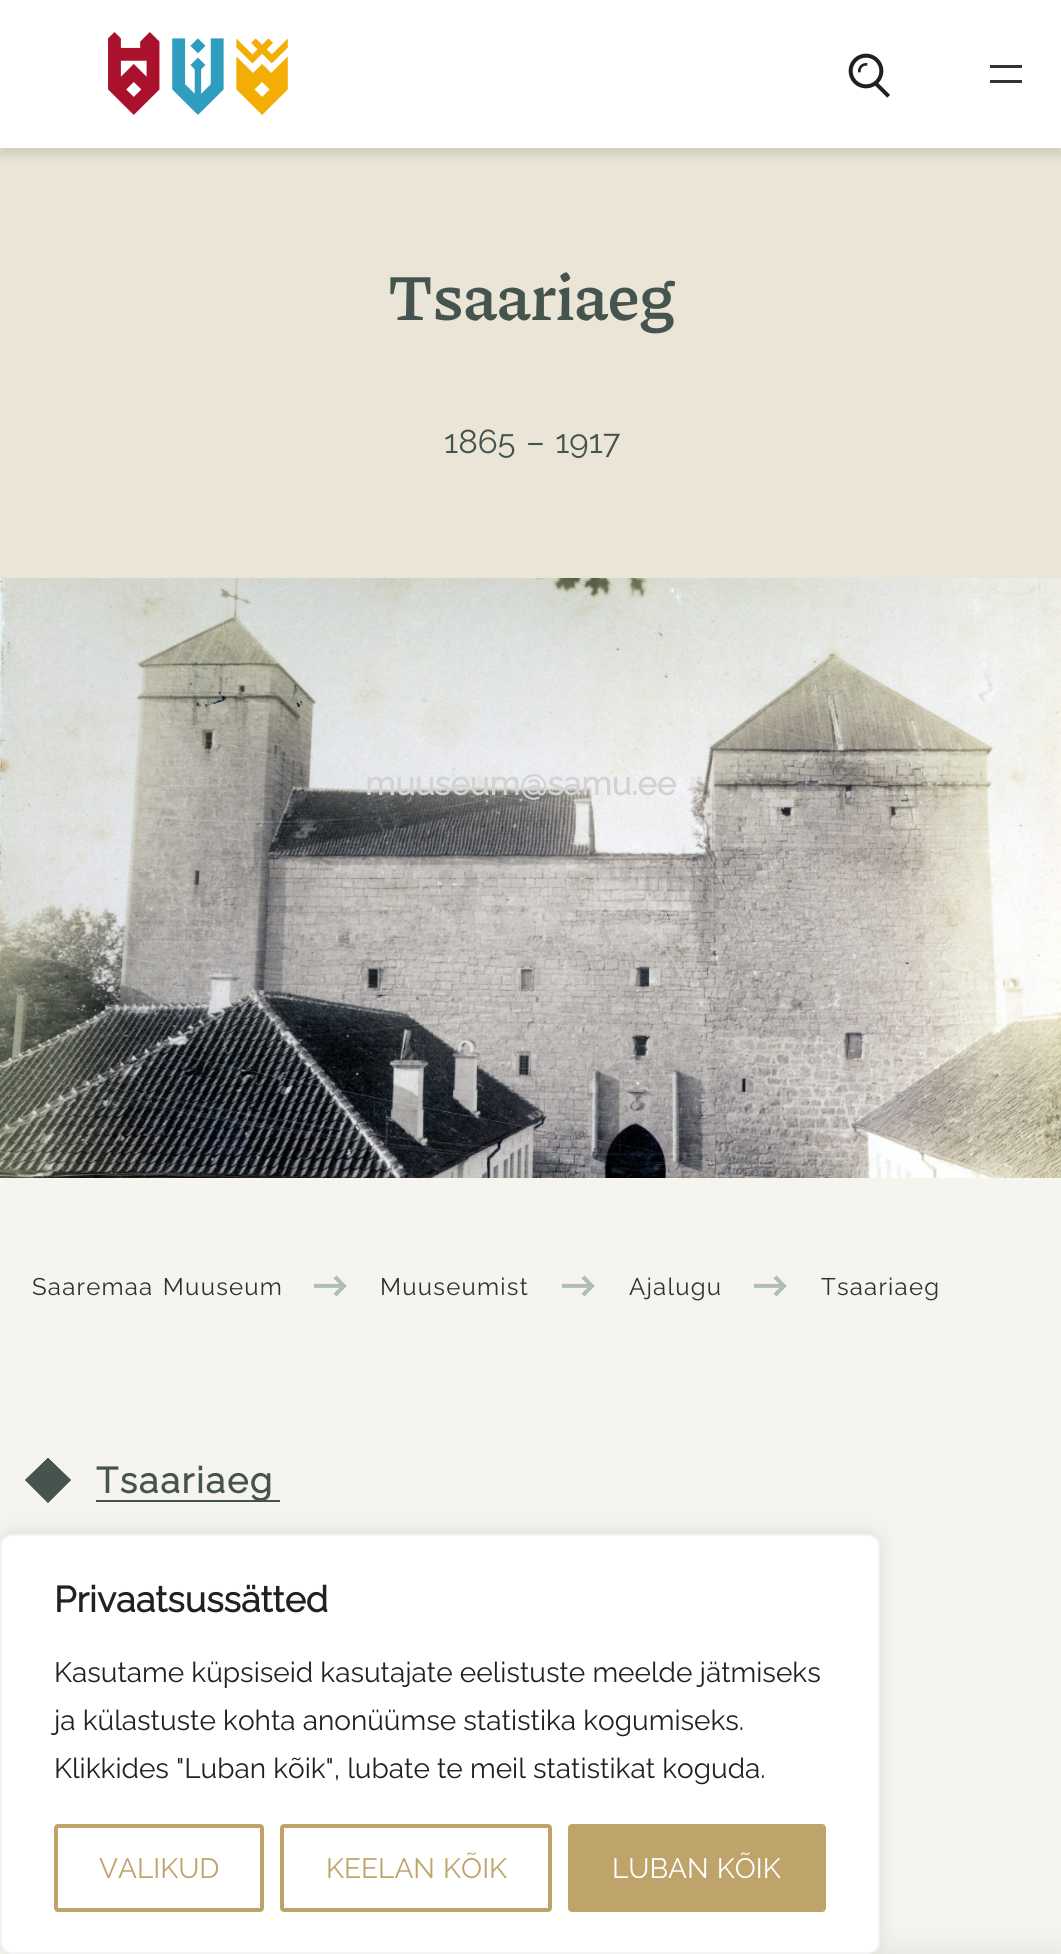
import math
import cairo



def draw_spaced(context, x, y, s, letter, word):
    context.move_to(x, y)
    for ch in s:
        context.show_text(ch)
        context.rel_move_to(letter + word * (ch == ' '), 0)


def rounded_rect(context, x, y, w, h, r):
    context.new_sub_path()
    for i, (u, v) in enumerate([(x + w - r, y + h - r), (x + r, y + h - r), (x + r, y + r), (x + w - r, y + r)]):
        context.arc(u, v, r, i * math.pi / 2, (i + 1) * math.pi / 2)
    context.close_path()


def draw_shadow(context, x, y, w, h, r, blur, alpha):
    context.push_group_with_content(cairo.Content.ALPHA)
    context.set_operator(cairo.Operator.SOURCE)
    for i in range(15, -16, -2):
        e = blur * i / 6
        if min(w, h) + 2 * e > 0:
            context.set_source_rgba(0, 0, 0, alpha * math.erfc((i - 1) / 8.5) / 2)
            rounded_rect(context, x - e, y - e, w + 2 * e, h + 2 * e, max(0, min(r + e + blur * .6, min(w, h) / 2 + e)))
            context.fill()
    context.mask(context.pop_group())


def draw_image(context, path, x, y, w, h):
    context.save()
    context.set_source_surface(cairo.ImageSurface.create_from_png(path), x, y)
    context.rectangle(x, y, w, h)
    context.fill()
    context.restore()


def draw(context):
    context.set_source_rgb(246 / 255, 244 / 255, 238 / 255)
    context.paint()
    context.set_source_rgb(234 / 255, 229 / 255, 214 / 255)
    context.rectangle(0, 148, 1061, 430)
    context.fill()
    draw_image(context, "images/1.png", 0, 578, 1061, 600)
    draw_image(context, "images/2.png", 314, 1275, 33, 22)
    draw_image(context, "images/2.png", 562, 1275, 33, 22)
    draw_image(context, "images/2.png", 754, 1275, 33, 22)
    context.set_source_rgb(69 / 255, 84 / 255, 78 / 255)
    context.new_path()
    context.move_to(25, 1480)
    context.line_to(48, 1458)
    context.line_to(71, 1480)
    context.line_to(48, 1503)
    context.close_path()
    context.fill()
    context.new_path()
    context.move_to(28, 1480)
    context.line_to(48, 1460.5)
    context.line_to(68, 1480)
    context.line_to(48, 1500)
    context.close_path()
    context.set_line_width(4)
    context.stroke()
    context.rectangle(96, 1500, 184, 2)
    context.fill()
    context.set_source_rgb(0, 0, 0)
    draw_shadow(context, 0, 8, 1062, 148, 0, 4, 0.1)
    context.set_source_rgb(1, 1, 1)
    context.rectangle(0, 0, 1061, 148)
    context.fill()
    draw_image(context, "images/3.png", 108, 32, 180, 83)
    draw_image(context, "images/4.png", 848, 53, 42, 45)
    context.set_source_rgb(44 / 255, 53 / 255, 48 / 255)
    context.rectangle(990, 65, 32, 3)
    context.fill()
    context.rectangle(990, 80, 32, 3)
    context.fill()
    context.set_source_rgb(0, 0, 0)
    draw_shadow(context, 824, 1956, 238, 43, 0, 15, 0.1)
    context.set_source_rgb(172 / 255, 171 / 255, 171 / 255)
    draw_shadow(context, 0, 1532, 880, 420, 12, 10, 0.3)
    context.set_source_rgb(1, 1, 1)
    rounded_rect(context, 1, 1535, 878, 418, 11)
    context.fill_preserve()
    context.set_source_rgb(244 / 255, 244 / 255, 244 / 255)
    context.set_line_width(2)
    context.stroke()
    rounded_rect(context, 56, 1826, 206, 84, 2)
    context.set_source_rgb(190 / 255, 163 / 255, 107 / 255)
    context.set_line_width(4)
    context.stroke()
    rounded_rect(context, 282, 1826, 268, 84, 2)
    context.stroke()
    rounded_rect(context, 570, 1826, 254, 84, 2)
    context.fill_preserve()
    context.stroke()
    context.select_font_face("Piazzolla SemiBold")
    context.set_font_size(65.5)
    context.set_source_rgb(69 / 255, 84 / 255, 78 / 255)
    context.move_to(388, 320)
    context.show_text("Tsaariaeg")
    context.select_font_face("Raleway")
    context.set_font_size(33)
    draw_spaced(context, 444, 453, "1865 – 1917", 0, 2)
    context.set_font_size(24)
    context.set_source_rgb(44 / 255, 53 / 255, 48 / 255)
    draw_spaced(context, 32, 1295, "Saaremaa Muuseum", 1.25, 2)
    draw_spaced(context, 380, 1295, "Muuseumist", 1.25, 0)
    draw_spaced(context, 629, 1295, "Ajalugu", 1.25, 0)
    draw_spaced(context, 821, 1295, "Tsaariaeg", 1.25, 0)
    context.select_font_face("Raleway", cairo.FontSlant.NORMAL, cairo.FontWeight.BOLD)
    context.set_font_size(36)
    context.set_source_rgb(69 / 255, 84 / 255, 78 / 255)
    draw_spaced(context, 96, 1493, "Tsaariaeg", 1.75, 0)
    context.set_font_size(33)
    context.set_source_rgb(210 / 255, 210 / 255, 210 / 255)
    context.move_to(365, 795)
    context.show_text("muuseum@samu.ee")
    context.set_font_size(36)
    context.set_source_rgb(33 / 255, 33 / 255, 33 / 255)
    context.move_to(54, 1612)
    context.show_text("Privaatsussätted")
    context.select_font_face("Raleway")
    context.set_font_size(28)
    context.move_to(54, 1682)
    context.show_text("Kasutame küpsiseid kasutajate eelistuste meelde jätmiseks")
    context.move_to(54, 1730)
    context.show_text("ja külastuste kohta anonüümse statistika kogumiseks.")
    context.move_to(54, 1778)
    context.show_text("Klikkides \"Luban kõik\", lubate te meil statistikat koguda.")
    context.set_source_rgb(190 / 255, 163 / 255, 107 / 255)
    context.move_to(99, 1878)
    context.show_text("VALIKUD")
    draw_spaced(context, 326, 1878, "KEELAN KÕIK", 0, 1)
    context.set_source_rgb(1, 1, 1)
    draw_spaced(context, 612, 1878, "LUBAN KÕIK", 0, 1)


surface = cairo.ImageSurface(cairo.Format.RGB24, 1061, 1954)
context = cairo.Context(surface)
options = cairo.FontOptions()
options.set_hint_metrics(cairo.HintMetrics.OFF)
options.set_hint_style(cairo.HintStyle.NONE)
context.set_font_options(options)
context.set_miter_limit(4)
draw(context)
surface.write_to_png("out.png")
